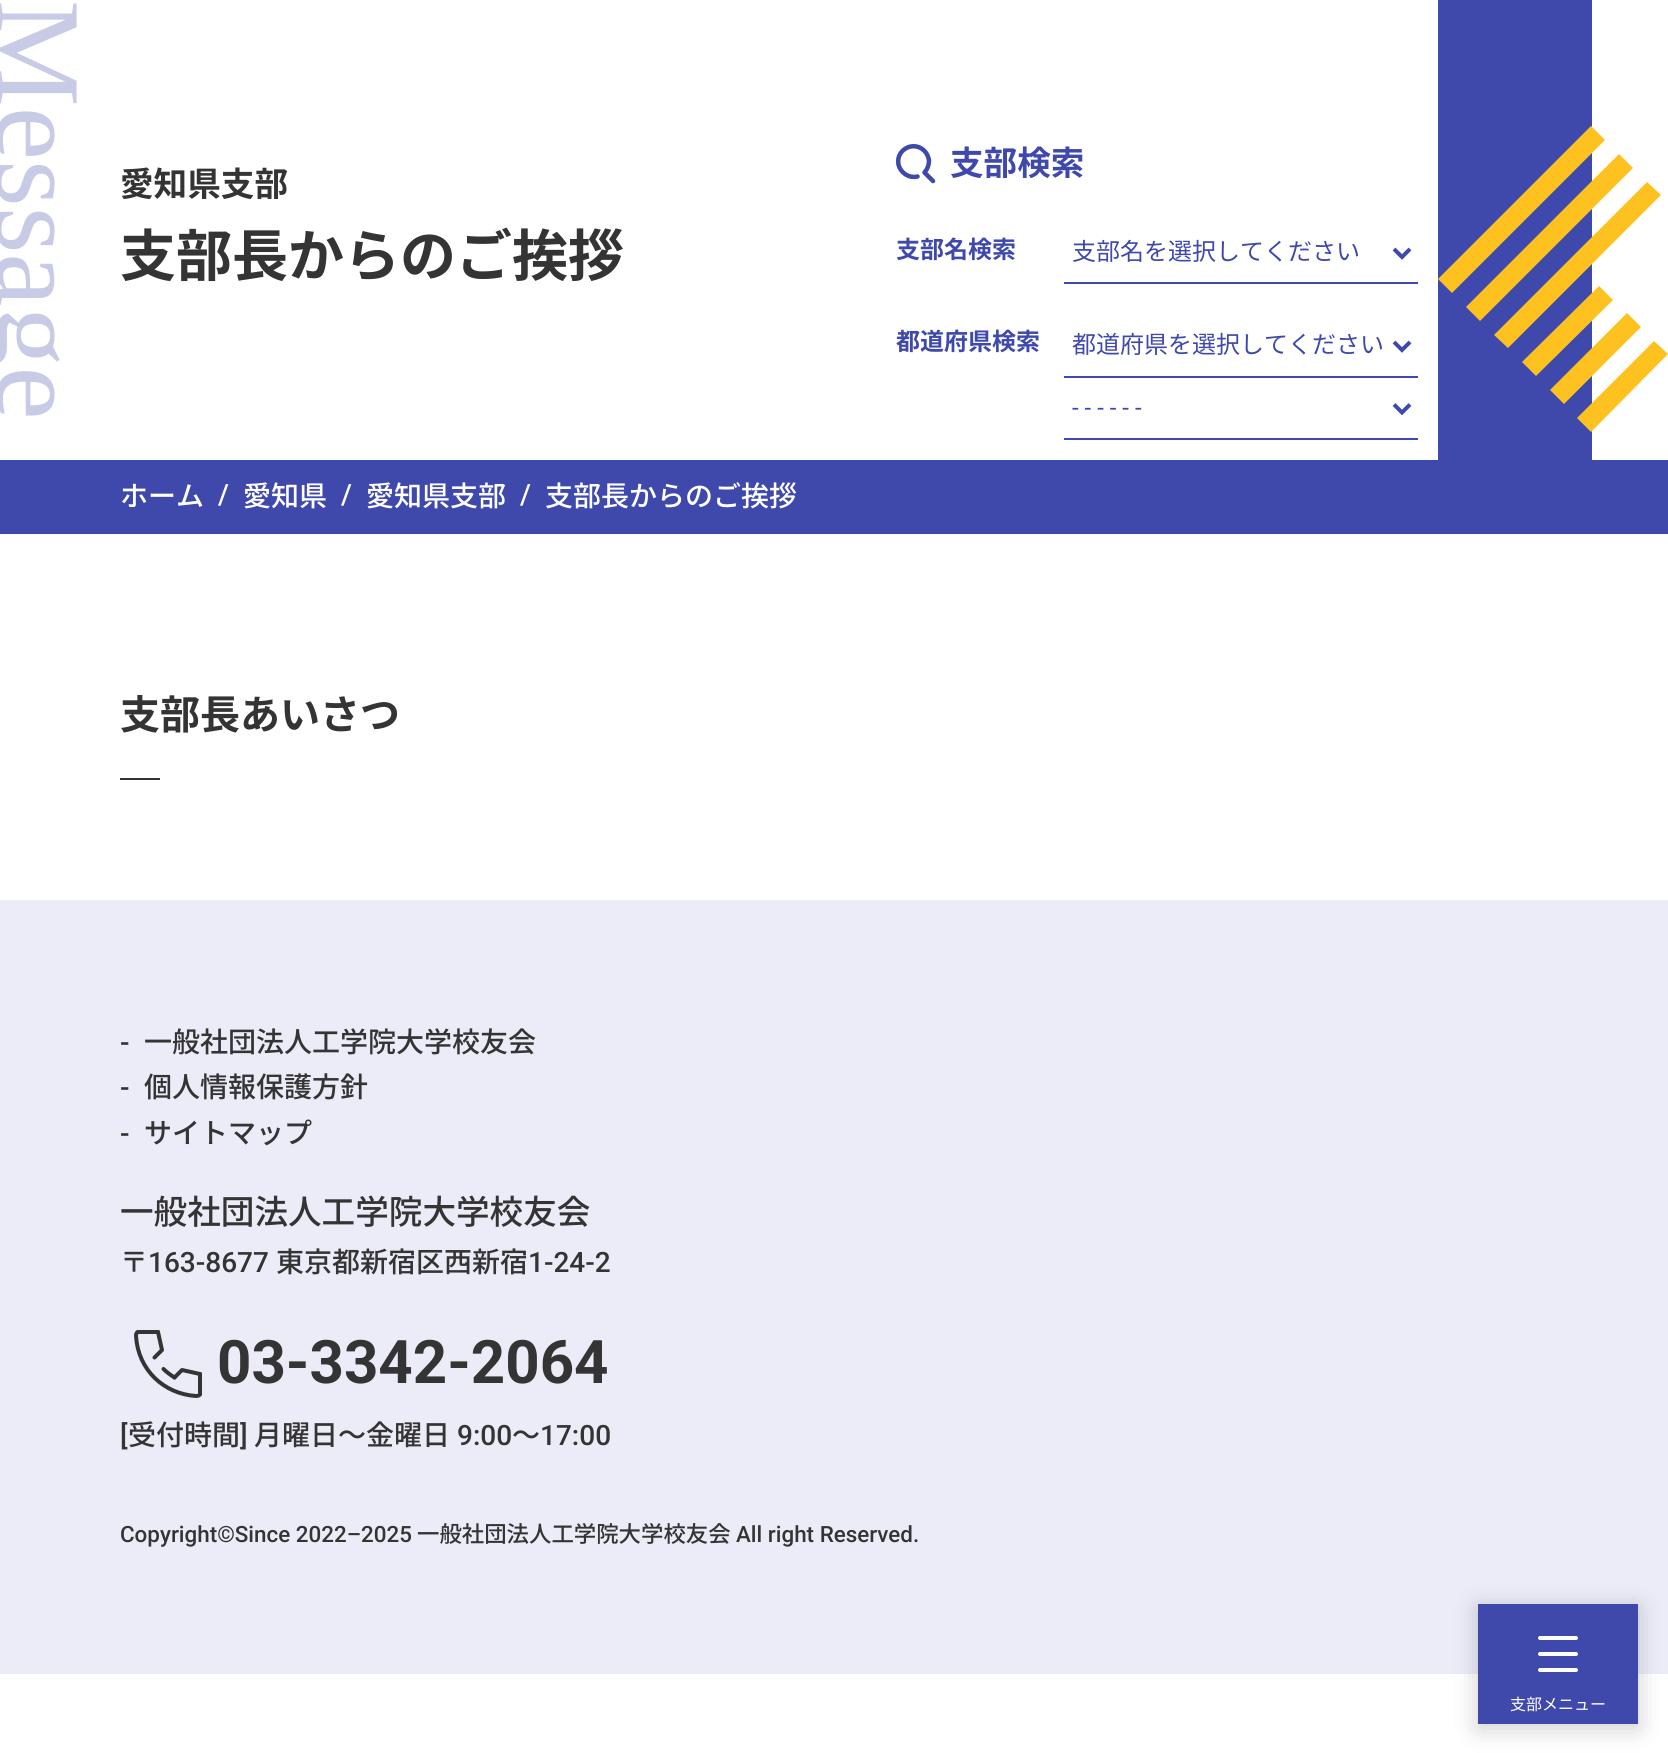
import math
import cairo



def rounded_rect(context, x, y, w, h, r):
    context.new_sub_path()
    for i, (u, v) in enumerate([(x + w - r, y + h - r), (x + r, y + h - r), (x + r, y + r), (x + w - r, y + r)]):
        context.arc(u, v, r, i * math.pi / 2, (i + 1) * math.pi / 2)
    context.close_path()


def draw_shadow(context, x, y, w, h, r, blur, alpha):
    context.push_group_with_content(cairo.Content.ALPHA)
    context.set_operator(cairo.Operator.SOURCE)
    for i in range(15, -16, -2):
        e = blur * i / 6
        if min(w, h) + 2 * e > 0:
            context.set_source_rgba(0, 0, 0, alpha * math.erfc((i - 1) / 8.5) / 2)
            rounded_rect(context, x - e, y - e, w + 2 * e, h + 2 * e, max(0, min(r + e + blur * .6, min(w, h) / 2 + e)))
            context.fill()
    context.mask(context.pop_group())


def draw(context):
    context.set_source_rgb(1, 1, 1)
    context.paint()
    context.new_path()
    context.move_to(917.5, 176.5)
    context.curve_to(909, 178.5, 900.5, 173, 898.5, 164.5)
    context.curve_to(895.5, 149.5, 914, 140, 924.5, 151)
    context.curve_to(927, 153.5, 928.5, 157, 929, 160.5)
    context.curve_to(929, 165, 927.5, 169, 924.5, 172.5)
    context.move_to(933, 181)
    context.line_to(924.5, 172.5)
    context.set_source_rgb(63 / 255, 73 / 255, 171 / 255)
    context.set_line_width(4.5)
    context.set_line_cap(cairo.LineCap.ROUND)
    context.set_line_join(cairo.LineJoin.ROUND)
    context.stroke()
    context.rectangle(1064, 282, 354, 2)
    context.fill()
    context.new_path()
    context.move_to(1394, 249)
    context.line_to(1402, 257)
    context.line_to(1410, 249)
    context.set_line_width(4)
    context.set_line_cap(cairo.LineCap.BUTT)
    context.set_line_join(cairo.LineJoin.MITER)
    context.stroke()
    context.rectangle(1064, 376, 354, 2)
    context.fill()
    context.new_path()
    context.move_to(1394, 342)
    context.line_to(1402, 350)
    context.line_to(1410, 342)
    context.stroke()
    context.rectangle(1064, 438, 354, 2)
    context.fill()
    context.new_path()
    context.move_to(1394, 404.5)
    context.line_to(1402, 412.5)
    context.line_to(1410, 404.5)
    context.stroke()
    context.rectangle(1438, 0, 154, 460)
    context.fill()
    context.set_source_rgb(253 / 255, 193 / 255, 32 / 255)
    context.new_path()
    context.move_to(1605, 140)
    context.line_to(1452, 293)
    context.line_to(1438, 279)
    context.line_to(1591, 126)
    context.close_path()
    context.fill()
    context.new_path()
    context.move_to(1633, 168)
    context.line_to(1480, 321)
    context.line_to(1466, 307)
    context.line_to(1619, 154)
    context.close_path()
    context.fill()
    context.new_path()
    context.move_to(1661, 195)
    context.line_to(1508, 348)
    context.line_to(1494, 335)
    context.line_to(1647, 182)
    context.close_path()
    context.fill()
    context.new_path()
    context.move_to(1536, 376)
    context.line_to(1522, 362)
    context.line_to(1599, 286)
    context.line_to(1613, 300)
    context.close_path()
    context.fill()
    context.new_path()
    context.move_to(1564, 404)
    context.line_to(1550, 390)
    context.line_to(1627, 313)
    context.line_to(1641, 327)
    context.close_path()
    context.fill()
    context.new_path()
    context.move_to(1591, 432)
    context.line_to(1577, 418)
    context.line_to(1654, 341)
    context.line_to(1668, 354)
    context.close_path()
    context.fill()
    context.set_source_rgb(63 / 255, 73 / 255, 171 / 255)
    context.rectangle(0, 460, 1668, 74)
    context.fill()
    context.set_source_rgb(52 / 255, 52 / 255, 52 / 255)
    context.rectangle(120, 778, 40, 2)
    context.fill()
    context.set_source_rgb(235 / 255, 236 / 255, 247 / 255)
    context.rectangle(0, 900, 1668, 774)
    context.fill()
    context.new_path()
    context.move_to(138, 1332)
    context.curve_to(136, 1332.5, 136, 1335, 136, 1336)
    context.curve_to(138, 1370, 164, 1394, 196, 1396)
    context.curve_to(197.5, 1396, 200, 1395.5, 200, 1394)
    context.move_to(163.5, 1369)
    context.curve_to(166.5, 1372, 170.5, 1375, 174.5, 1377.5)
    context.set_source_rgb(52 / 255, 52 / 255, 52 / 255)
    context.set_line_cap(cairo.LineCap.ROUND)
    context.stroke()
    context.new_path()
    context.move_to(200, 1374)
    context.line_to(182, 1370)
    context.line_to(174.5, 1377.5)
    context.move_to(158, 1332)
    context.line_to(162, 1350)
    context.line_to(154.5, 1357.5)
    context.set_line_join(cairo.LineJoin.ROUND)
    context.stroke()
    context.new_path()
    context.move_to(138, 1332)
    context.line_to(158, 1332)
    context.move_to(200, 1374)
    context.line_to(200, 1394)
    context.set_line_join(cairo.LineJoin.MITER)
    context.stroke()
    context.set_source_rgb(52 / 255, 52 / 255, 52 / 255)
    draw_shadow(context, 1478, 1608, 160, 120, 0, 12, 0.25)
    context.set_source_rgb(63 / 255, 73 / 255, 171 / 255)
    context.rectangle(1478, 1604, 160, 120)
    context.fill()
    context.set_source_rgb(1, 1, 1)
    rounded_rect(context, 1538, 1652, 40, 4, 2)
    context.fill()
    rounded_rect(context, 1538, 1636, 40, 4, 2)
    context.fill()
    rounded_rect(context, 1538, 1668, 40, 4, 2)
    context.fill()
    context.select_font_face("Liberation Serif")
    context.set_font_size(120)
    context.set_source_rgb(200 / 255, 203 / 255, 230 / 255)
    context.save()
    context.translate(-2, 0)
    context.rotate(90 * math.pi / 180)
    context.move_to(0, 0)
    context.show_text("Message")
    context.restore()
    context.select_font_face("Noto Sans CJK JP", cairo.FontSlant.NORMAL, cairo.FontWeight.BOLD)
    context.set_font_size(33.6)
    context.set_source_rgb(52 / 255, 52 / 255, 52 / 255)
    context.move_to(120, 196)
    context.show_text("愛知県支部")
    context.set_font_size(56)
    context.move_to(120, 276)
    context.show_text("支部長からのご挨拶")
    context.set_font_size(33.6)
    context.set_source_rgb(63 / 255, 73 / 255, 171 / 255)
    context.move_to(950, 175)
    context.show_text("支部検索")
    context.set_font_size(24)
    context.move_to(896, 258)
    context.show_text("支部名検索")
    context.select_font_face("Noto Sans CJK JP")
    context.move_to(1072, 260)
    context.show_text("支部名を選択してください")
    context.select_font_face("Noto Sans CJK JP", cairo.FontSlant.NORMAL, cairo.FontWeight.BOLD)
    context.move_to(896, 350)
    context.show_text("都道府県検索")
    context.select_font_face("Noto Sans CJK JP")
    context.move_to(1072, 353)
    context.show_text("都道府県を選択してください")
    context.select_font_face("Roboto")
    context.move_to(1072, 416)
    context.show_text("- - - - - -")
    context.select_font_face("Noto Sans CJK JP Medium")
    context.set_font_size(28)
    context.set_source_rgb(1, 1, 1)
    context.move_to(120, 506)
    context.show_text("ホーム")
    context.select_font_face("Roboto Medium")
    context.move_to(218, 504)
    context.show_text("/")
    context.select_font_face("Noto Sans CJK JP Medium")
    context.move_to(243, 506)
    context.show_text("愛知県")
    context.select_font_face("Roboto Medium")
    context.move_to(341, 504)
    context.show_text("/")
    context.select_font_face("Noto Sans CJK JP Medium")
    context.move_to(366, 506)
    context.show_text("愛知県支部")
    context.select_font_face("Roboto Medium")
    context.move_to(520, 504)
    context.show_text("/")
    context.select_font_face("Noto Sans CJK JP Medium")
    context.move_to(545, 506)
    context.show_text("支部長からのご挨拶")
    context.select_font_face("Noto Sans CJK JP", cairo.FontSlant.NORMAL, cairo.FontWeight.BOLD)
    context.set_font_size(40)
    context.set_source_rgb(52 / 255, 52 / 255, 52 / 255)
    context.move_to(120, 729)
    context.show_text("支部長あいさつ")
    context.select_font_face("Roboto Medium")
    context.set_font_size(28)
    context.move_to(120, 1052)
    context.show_text("-")
    context.select_font_face("Noto Sans CJK JP Medium")
    context.move_to(144, 1052)
    context.show_text("一般社団法人工学院大学校友会")
    context.select_font_face("Roboto Medium")
    context.move_to(120, 1097)
    context.show_text("-")
    context.select_font_face("Noto Sans CJK JP Medium")
    context.move_to(144, 1097)
    context.show_text("個人情報保護方針")
    context.select_font_face("Roboto Medium")
    context.move_to(120, 1143)
    context.show_text("-")
    context.select_font_face("Noto Sans CJK JP Medium")
    context.move_to(144, 1143)
    context.show_text("サイトマップ")
    context.set_font_size(33.6)
    context.move_to(120, 1224)
    context.show_text("一般社団法人工学院大学校友会")
    context.set_font_size(28)
    context.move_to(120, 1272)
    context.show_text("〒")
    context.select_font_face("Roboto Medium")
    context.move_to(148, 1272)
    context.show_text("163-8677")
    context.select_font_face("Noto Sans CJK JP Medium")
    context.move_to(276, 1272)
    context.show_text("東京都新宿区西新宿")
    context.select_font_face("Roboto Medium")
    context.move_to(528, 1272)
    context.show_text("1-24-2")
    context.select_font_face("Roboto", cairo.FontSlant.NORMAL, cairo.FontWeight.BOLD)
    context.set_font_size(60)
    context.move_to(217, 1383)
    context.show_text("03-3342-2064")
    context.select_font_face("Roboto Medium")
    context.set_font_size(28)
    context.move_to(120, 1445)
    context.show_text("[")
    context.select_font_face("Noto Sans CJK JP Medium")
    context.move_to(128, 1445)
    context.show_text("受付時間")
    context.select_font_face("Roboto Medium")
    context.move_to(240, 1445)
    context.show_text("]")
    context.select_font_face("Noto Sans CJK JP Medium")
    context.move_to(254, 1445)
    context.show_text("月曜日～金曜日")
    context.select_font_face("Roboto Medium")
    context.move_to(457, 1445)
    context.show_text("9:00")
    context.select_font_face("Noto Sans CJK JP Medium")
    context.move_to(512, 1445)
    context.show_text("～")
    context.select_font_face("Roboto Medium")
    context.move_to(540, 1445)
    context.show_text("17:00")
    context.set_font_size(22.4)
    context.move_to(120, 1542)
    context.show_text("Copyright©Since 2022–2025")
    context.select_font_face("Noto Sans CJK JP Medium")
    context.move_to(417, 1542)
    context.show_text("一般社団法人工学院大学校友会")
    context.select_font_face("Roboto Medium")
    context.move_to(736, 1542)
    context.show_text("All right Reserved.")
    context.select_font_face("Noto Sans CJK JP")
    context.set_font_size(16)
    context.set_source_rgb(1, 1, 1)
    context.move_to(1510, 1710)
    context.show_text("支部メニュー")


surface = cairo.ImageSurface(cairo.Format.RGB24, 1668, 1753)
context = cairo.Context(surface)
options = cairo.FontOptions()
options.set_hint_metrics(cairo.HintMetrics.OFF)
options.set_hint_style(cairo.HintStyle.NONE)
context.set_font_options(options)
context.set_miter_limit(4)
draw(context)
surface.write_to_png("out.png")
